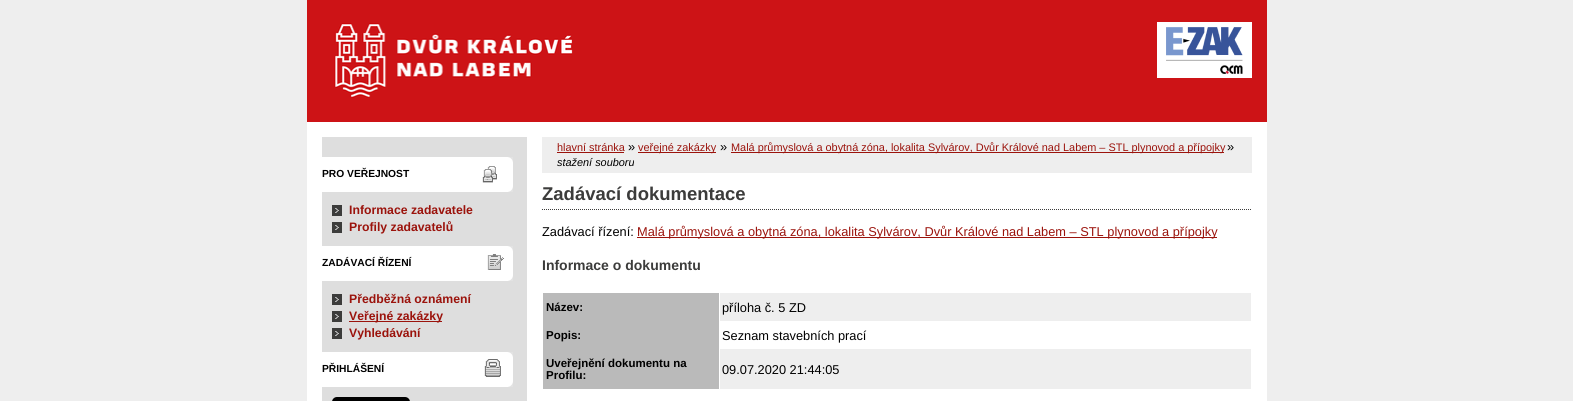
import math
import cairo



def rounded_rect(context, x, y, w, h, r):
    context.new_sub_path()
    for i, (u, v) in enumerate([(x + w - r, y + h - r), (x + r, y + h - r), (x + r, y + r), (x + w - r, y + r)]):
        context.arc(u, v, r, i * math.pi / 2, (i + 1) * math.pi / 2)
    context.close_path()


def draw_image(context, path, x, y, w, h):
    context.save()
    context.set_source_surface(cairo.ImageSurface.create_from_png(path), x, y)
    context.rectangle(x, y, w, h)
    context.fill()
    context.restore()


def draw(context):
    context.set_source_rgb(238 / 255, 238 / 255, 238 / 255)
    context.paint()
    context.set_source_rgb(205 / 255, 19 / 255, 22 / 255)
    context.rectangle(307, 0, 960, 122)
    context.fill()
    draw_image(context, "images/1.png", 334, 23, 239, 75)
    context.set_source_rgb(1, 1, 1)
    context.rectangle(1157, 22, 95, 56)
    context.fill()
    draw_image(context, "images/2.png", 1166, 27, 77, 47)
    context.rectangle(307, 122, 960, 279)
    context.fill()
    context.set_source_rgb(222 / 255, 222 / 255, 222 / 255)
    context.rectangle(322, 137, 205, 264)
    context.fill()
    draw_image(context, "images/3.png", 322, 157, 191, 35)
    draw_image(context, "images/4.png", 332, 205, 10, 11)
    draw_image(context, "images/4.png", 332, 222, 10, 11)
    draw_image(context, "images/5.png", 322, 246, 191, 35)
    draw_image(context, "images/4.png", 332, 294, 10, 11)
    draw_image(context, "images/4.png", 332, 311, 10, 11)
    context.set_source_rgb(155 / 255, 19 / 255, 12 / 255)
    context.rectangle(349, 321, 93, 1)
    context.fill()
    draw_image(context, "images/4.png", 332, 328, 10, 11)
    draw_image(context, "images/6.png", 322, 352, 191, 35)
    context.set_source_rgb(0, 0, 0)
    rounded_rect(context, 332, 397, 78, 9, 5)
    context.fill()
    context.set_source_rgb(238 / 255, 238 / 255, 238 / 255)
    context.rectangle(542, 137, 710, 36)
    context.fill()
    context.set_source_rgb(155 / 255, 19 / 255, 12 / 255)
    context.rectangle(557, 152, 67, 1)
    context.fill()
    context.rectangle(638, 152, 78, 1)
    context.fill()
    context.rectangle(731, 152, 493, 1)
    context.fill()
    context.new_path()
    context.move_to(542, 209.5)
    context.line_to(1252, 209.5)
    context.set_source_rgb(60 / 255, 60 / 255, 59 / 255)
    context.set_line_width(1)
    context.set_dash([1, 1])
    context.stroke()
    context.set_source_rgb(155 / 255, 19 / 255, 12 / 255)
    context.rectangle(637, 237, 580, 1)
    context.fill()
    context.set_source_rgb(238 / 255, 238 / 255, 238 / 255)
    context.rectangle(720, 293, 531, 28)
    context.fill()
    context.set_source_rgb(186 / 255, 186 / 255, 186 / 255)
    context.rectangle(543, 293, 176, 96)
    context.fill()
    context.set_source_rgb(238 / 255, 238 / 255, 238 / 255)
    context.rectangle(720, 349, 531, 40)
    context.fill()
    context.select_font_face("Liberation Sans", cairo.FontSlant.NORMAL, cairo.FontWeight.BOLD)
    context.set_font_size(10.25)
    context.set_source_rgb(0, 0, 0)
    context.move_to(322, 177)
    context.show_text("PRO VEŘEJNOST")
    context.set_font_size(12.25)
    context.set_source_rgb(155 / 255, 19 / 255, 12 / 255)
    context.move_to(349, 214)
    context.show_text("Informace zadavatele")
    context.move_to(349, 231)
    context.show_text("Profily zadavatelů")
    context.set_font_size(10.25)
    context.set_source_rgb(0, 0, 0)
    context.move_to(322, 266)
    context.show_text("ZADÁVACÍ ŘÍZENÍ")
    context.set_font_size(12.25)
    context.set_source_rgb(155 / 255, 19 / 255, 12 / 255)
    context.move_to(349, 303)
    context.show_text("Předběžná oznámení")
    context.move_to(349, 320)
    context.show_text("Veřejné zakázky")
    context.move_to(349, 337)
    context.show_text("Vyhledávání")
    context.set_font_size(10.25)
    context.set_source_rgb(0, 0, 0)
    context.move_to(322, 372)
    context.show_text("PŘIHLÁŠENÍ")
    context.select_font_face("Liberation Sans")
    context.set_font_size(10.9)
    context.set_source_rgb(155 / 255, 19 / 255, 12 / 255)
    context.move_to(557, 151)
    context.show_text("hlavní stránka")
    context.set_font_size(12.8)
    context.set_source_rgb(0, 0, 0)
    context.move_to(628, 151)
    context.show_text("»")
    context.set_font_size(10.9)
    context.set_source_rgb(155 / 255, 19 / 255, 12 / 255)
    context.move_to(638, 151)
    context.show_text("veřejné zakázky")
    context.set_font_size(12.8)
    context.set_source_rgb(0, 0, 0)
    context.move_to(720, 151)
    context.show_text("»")
    context.set_font_size(10.9)
    context.set_source_rgb(155 / 255, 19 / 255, 12 / 255)
    context.move_to(731, 151)
    context.show_text("Malá průmyslová a obytná zóna, lokalita Sylvárov, Dvůr Králové nad Labem – STL plynovod a přípojky")
    context.set_font_size(12.8)
    context.set_source_rgb(0, 0, 0)
    context.move_to(1227, 151)
    context.show_text("»")
    context.select_font_face("Liberation Sans", cairo.FontSlant.ITALIC)
    context.set_font_size(10.9)
    context.move_to(557, 166)
    context.show_text("stažení souboru")
    context.select_font_face("Liberation Sans", cairo.FontSlant.NORMAL, cairo.FontWeight.BOLD)
    context.set_font_size(18.5)
    context.set_source_rgb(60 / 255, 60 / 255, 59 / 255)
    context.move_to(542, 200)
    context.show_text("Zadávací dokumentace")
    context.select_font_face("Liberation Sans")
    context.set_font_size(12.8)
    context.set_source_rgb(0, 0, 0)
    context.move_to(542, 236)
    context.show_text("Zadávací řízení:")
    context.set_source_rgb(155 / 255, 19 / 255, 12 / 255)
    context.move_to(637, 236)
    context.show_text("Malá průmyslová a obytná zóna, lokalita Sylvárov, Dvůr Králové nad Labem – STL plynovod a přípojky")
    context.select_font_face("Liberation Sans", cairo.FontSlant.NORMAL, cairo.FontWeight.BOLD)
    context.set_font_size(14)
    context.set_source_rgb(60 / 255, 60 / 255, 59 / 255)
    context.move_to(542, 270)
    context.show_text("Informace o dokumentu")
    context.set_font_size(11.5)
    context.set_source_rgb(0, 0, 0)
    context.move_to(546, 311)
    context.show_text("Název:")
    context.select_font_face("Liberation Sans")
    context.set_font_size(12.8)
    context.move_to(722, 312)
    context.show_text("příloha č. 5 ZD")
    context.select_font_face("Liberation Sans", cairo.FontSlant.NORMAL, cairo.FontWeight.BOLD)
    context.set_font_size(11.5)
    context.move_to(546, 339)
    context.show_text("Popis:")
    context.select_font_face("Liberation Sans")
    context.set_font_size(12.8)
    context.move_to(722, 340)
    context.show_text("Seznam stavebních prací")
    context.select_font_face("Liberation Sans", cairo.FontSlant.NORMAL, cairo.FontWeight.BOLD)
    context.set_font_size(11.5)
    context.move_to(546, 367)
    context.show_text("Uveřejnění dokumentu na")
    context.move_to(546, 379)
    context.show_text("Profilu:")
    context.select_font_face("Liberation Sans")
    context.set_font_size(12.8)
    context.move_to(722, 374)
    context.show_text("09.07.2020 21:44:05")


surface = cairo.ImageSurface(cairo.Format.RGB24, 1573, 401)
context = cairo.Context(surface)
options = cairo.FontOptions()
options.set_hint_metrics(cairo.HintMetrics.OFF)
options.set_hint_style(cairo.HintStyle.NONE)
context.set_font_options(options)
context.set_miter_limit(4)
draw(context)
surface.write_to_png("out.png")
